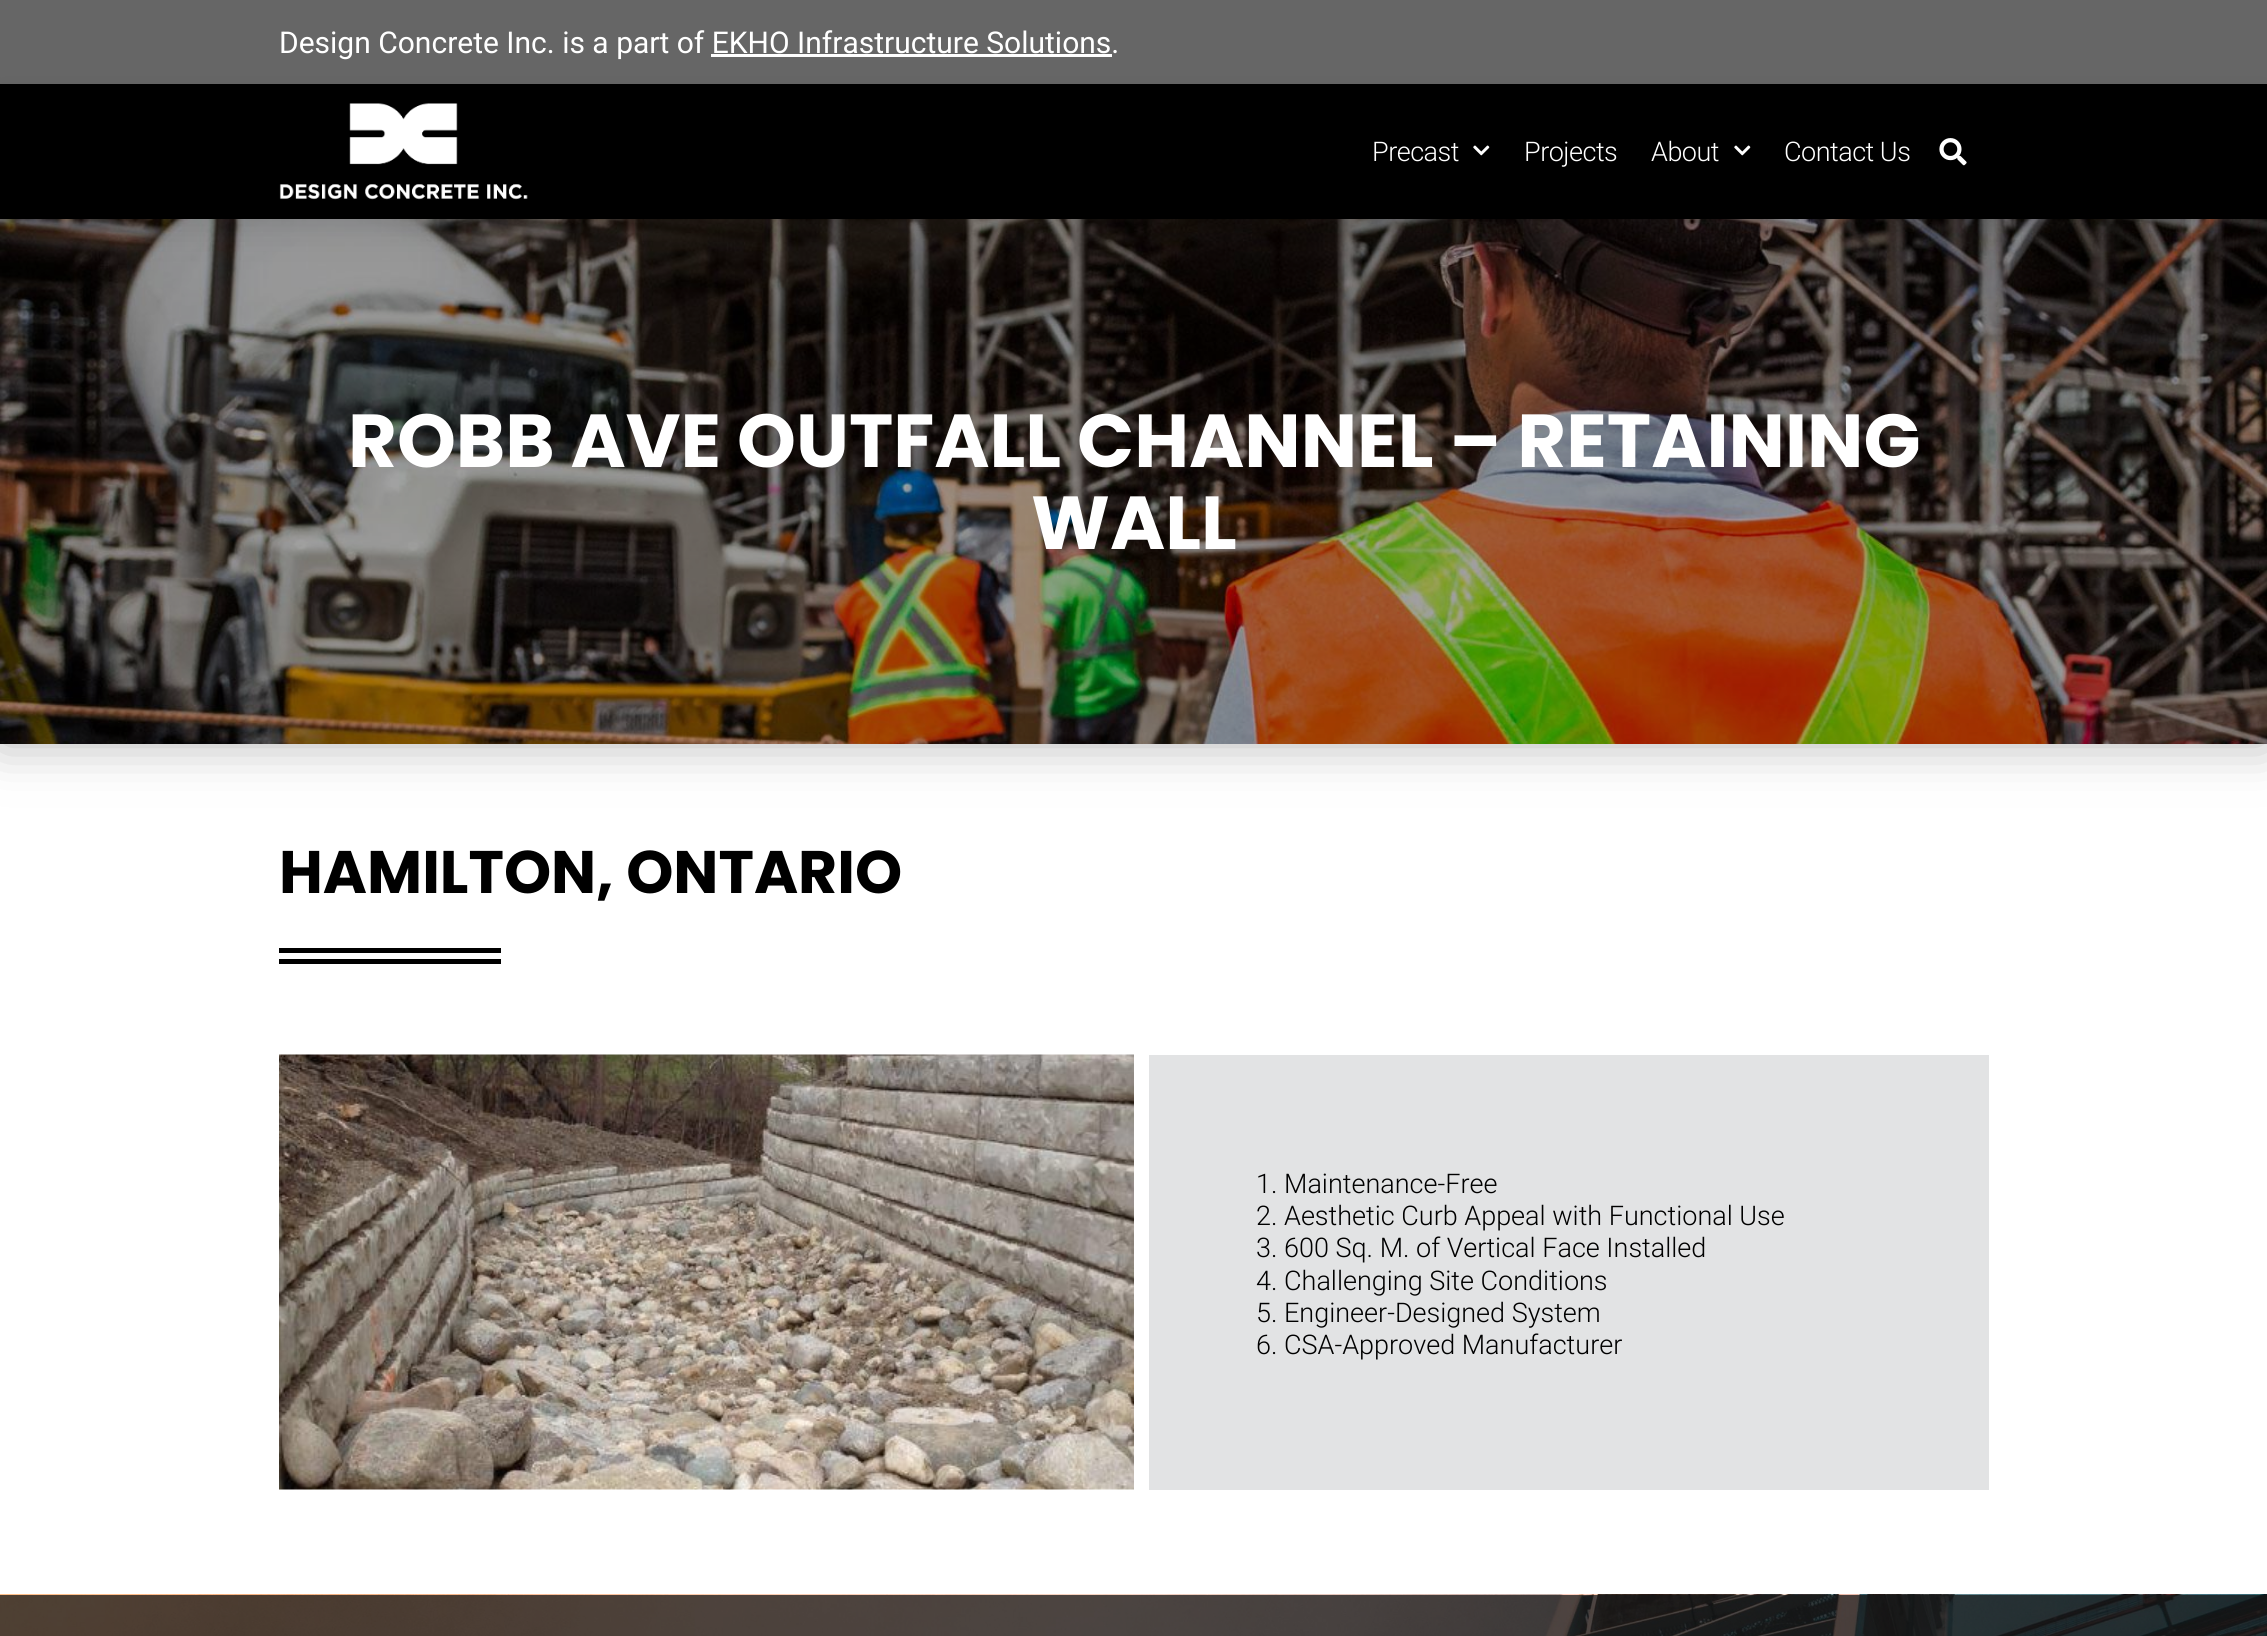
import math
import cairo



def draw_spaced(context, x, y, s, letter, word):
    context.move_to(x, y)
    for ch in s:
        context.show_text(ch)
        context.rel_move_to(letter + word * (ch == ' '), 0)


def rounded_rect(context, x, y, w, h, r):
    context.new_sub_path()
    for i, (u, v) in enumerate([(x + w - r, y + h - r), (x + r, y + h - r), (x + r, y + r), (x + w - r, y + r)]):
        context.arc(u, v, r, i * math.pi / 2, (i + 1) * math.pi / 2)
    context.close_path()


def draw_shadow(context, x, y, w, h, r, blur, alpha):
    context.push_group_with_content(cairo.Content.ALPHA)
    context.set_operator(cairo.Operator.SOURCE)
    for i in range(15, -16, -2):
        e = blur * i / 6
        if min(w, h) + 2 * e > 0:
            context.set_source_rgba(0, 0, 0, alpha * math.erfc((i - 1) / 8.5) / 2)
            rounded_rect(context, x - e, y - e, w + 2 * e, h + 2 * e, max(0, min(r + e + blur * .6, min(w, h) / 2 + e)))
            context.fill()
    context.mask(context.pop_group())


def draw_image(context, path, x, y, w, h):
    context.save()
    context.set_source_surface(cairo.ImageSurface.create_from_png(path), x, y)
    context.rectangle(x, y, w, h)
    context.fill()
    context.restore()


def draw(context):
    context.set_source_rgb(1, 1, 1)
    context.paint()
    context.set_source_rgb(102 / 255, 102 / 255, 102 / 255)
    context.rectangle(0, 0, 2267, 84)
    context.fill()
    context.set_source_rgb(1, 1, 1)
    context.rectangle(711, 54, 401, 3)
    context.fill()
    context.set_source_rgb(107 / 255, 107 / 255, 107 / 255)
    draw_shadow(context, 0, 219, 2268, 525, 0, 25.5, 0.5)
    draw_image(context, "images/4.png", 0, 219, 2267, 525)
    context.set_source_rgb(0, 0, 0)
    draw_shadow(context, 0, 99, 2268, 135, 0, 15, 0.1)
    context.set_source_rgb(0, 0, 0)
    context.rectangle(0, 84, 2267, 135)
    context.fill()
    draw_image(context, "images/1.png", 279, 103, 249, 97)
    draw_image(context, "images/2.png", 1473, 145, 17, 11)
    draw_image(context, "images/2.png", 1734, 145, 17, 11)
    draw_image(context, "images/3.png", 1939, 138, 28, 28)
    context.rectangle(279, 948, 222, 5)
    context.fill()
    context.rectangle(279, 959, 222, 5)
    context.fill()
    draw_image(context, "images/5.png", 279, 1054, 855, 436)
    context.set_source_rgb(226 / 255, 227 / 255, 228 / 255)
    context.rectangle(1149, 1055, 840, 435)
    context.fill()
    draw_image(context, "images/6.png", 0, 1594, 2267, 42)
    context.select_font_face("Roboto")
    context.set_font_size(30)
    context.set_source_rgb(1, 1, 1)
    context.move_to(279, 53)
    context.show_text("Design Concrete Inc. is a part of EKHO Infrastructure Solutions.")
    context.select_font_face("Roboto Light")
    context.set_font_size(27)
    draw_spaced(context, 1372, 161, "Precast", -0.5, 0)
    draw_spaced(context, 1524, 161, "Projects", -0.5, 0)
    draw_spaced(context, 1651, 161, "About", -0.5, 0)
    draw_spaced(context, 1784, 161, "Contact Us", -0.5, 0)
    context.select_font_face("Poppins", cairo.FontSlant.NORMAL, cairo.FontWeight.BOLD)
    context.set_font_size(75)
    context.move_to(348, 467)
    context.show_text("ROBB AVE OUTFALL CHANNEL – RETAINING")
    context.move_to(1031, 549)
    context.show_text("WALL")
    context.set_font_size(60)
    context.set_source_rgb(0, 0, 0)
    context.move_to(279, 893)
    context.show_text("HAMILTON, ONTARIO")
    context.select_font_face("Roboto Light")
    context.set_font_size(27)
    context.move_to(1256, 1193)
    context.show_text("1. Maintenance-Free")
    context.move_to(1256, 1225)
    context.show_text("2. Aesthetic Curb Appeal with Functional Use")
    context.move_to(1256, 1257)
    context.show_text("3. 600 Sq. M. of Vertical Face Installed")
    context.move_to(1256, 1290)
    context.show_text("4. Challenging Site Conditions")
    context.move_to(1256, 1322)
    context.show_text("5. Engineer-Designed System")
    context.move_to(1256, 1354)
    context.show_text("6. CSA-Approved Manufacturer")


surface = cairo.ImageSurface(cairo.Format.RGB24, 2267, 1636)
context = cairo.Context(surface)
options = cairo.FontOptions()
options.set_hint_metrics(cairo.HintMetrics.OFF)
options.set_hint_style(cairo.HintStyle.NONE)
context.set_font_options(options)
context.set_miter_limit(4)
draw(context)
surface.write_to_png("out.png")
